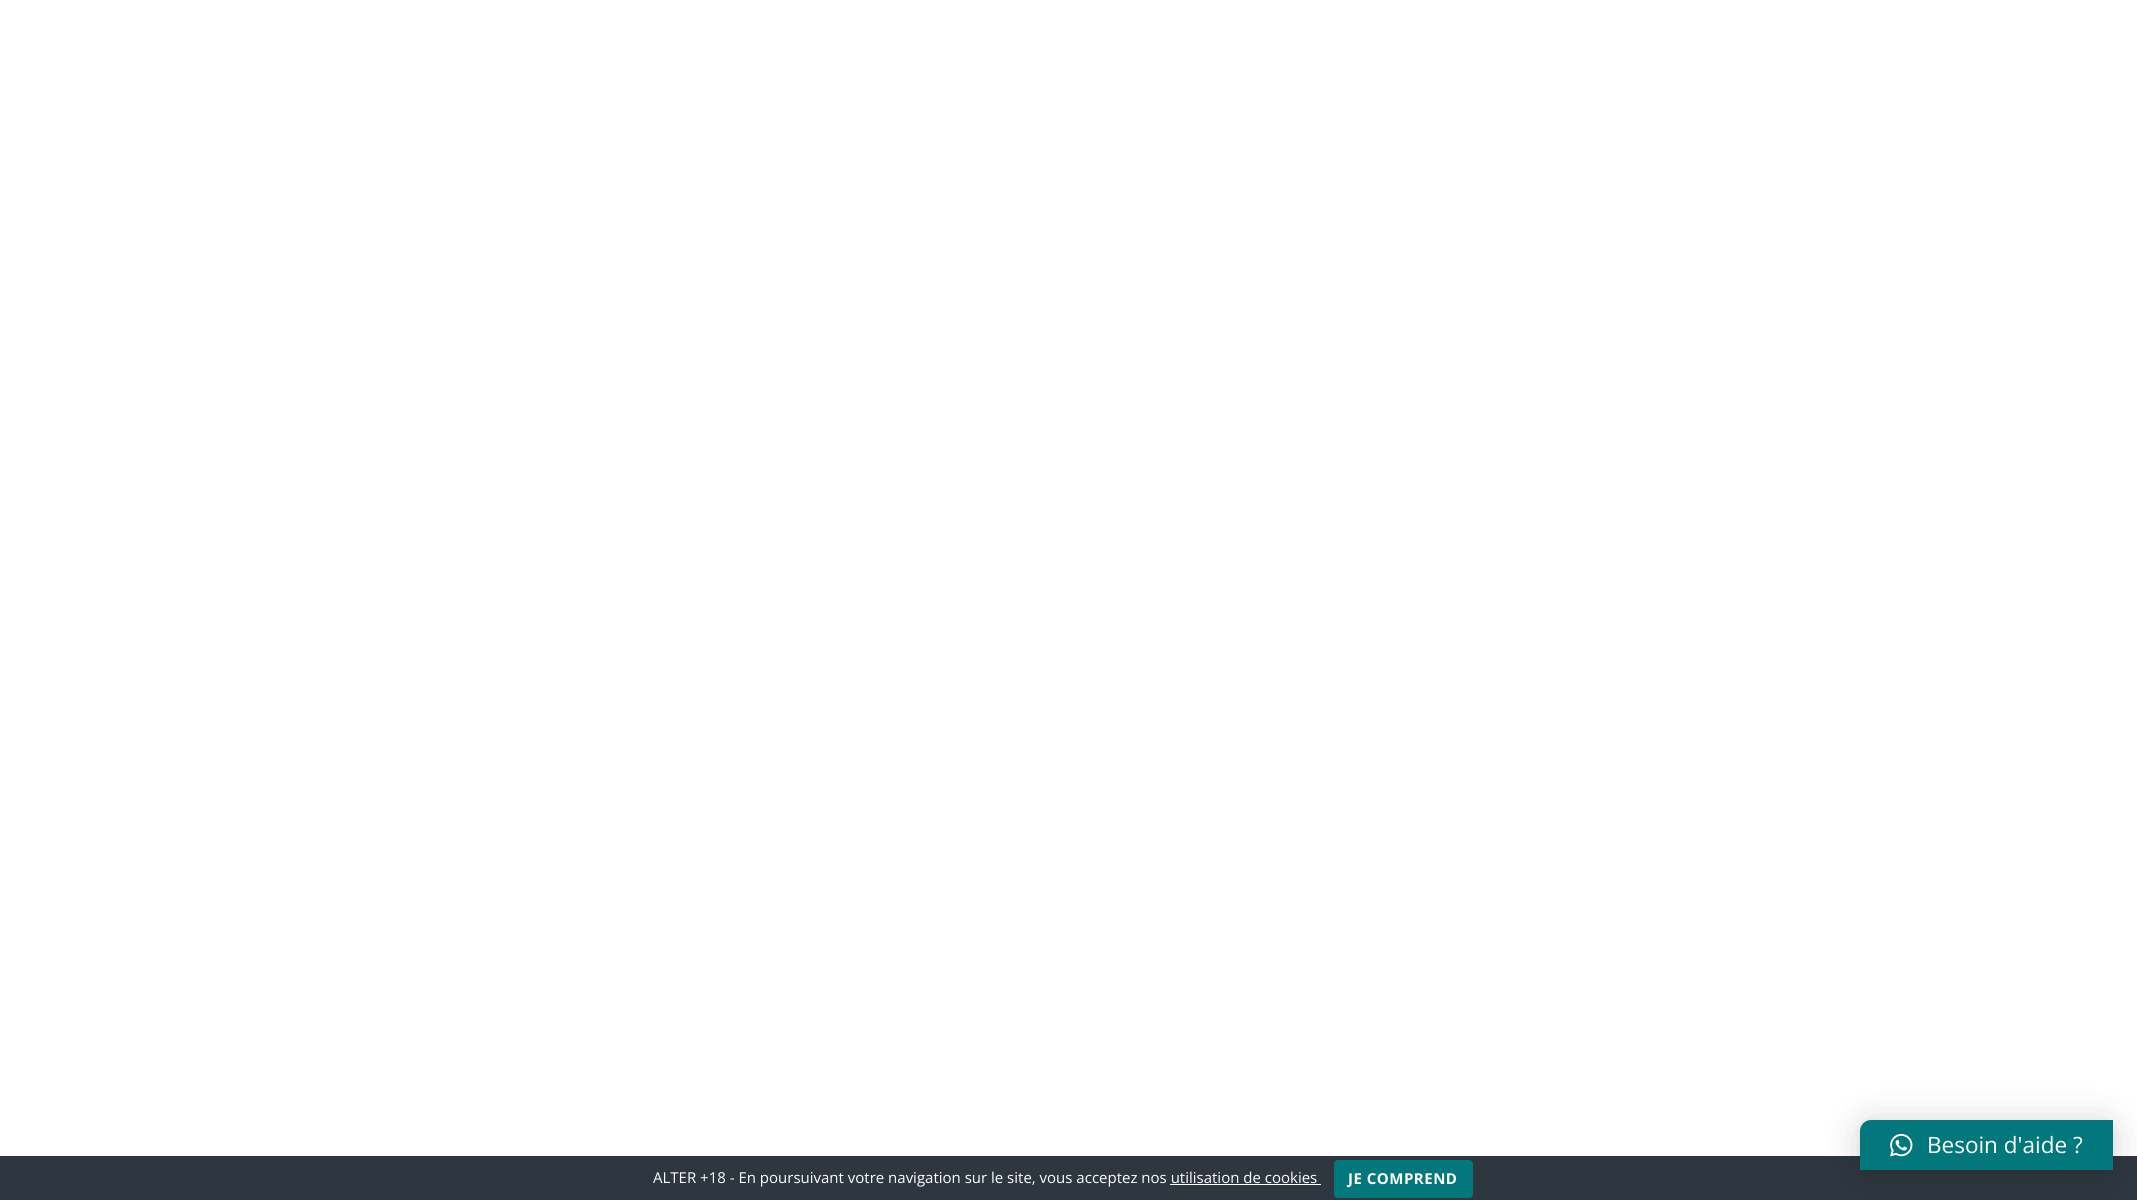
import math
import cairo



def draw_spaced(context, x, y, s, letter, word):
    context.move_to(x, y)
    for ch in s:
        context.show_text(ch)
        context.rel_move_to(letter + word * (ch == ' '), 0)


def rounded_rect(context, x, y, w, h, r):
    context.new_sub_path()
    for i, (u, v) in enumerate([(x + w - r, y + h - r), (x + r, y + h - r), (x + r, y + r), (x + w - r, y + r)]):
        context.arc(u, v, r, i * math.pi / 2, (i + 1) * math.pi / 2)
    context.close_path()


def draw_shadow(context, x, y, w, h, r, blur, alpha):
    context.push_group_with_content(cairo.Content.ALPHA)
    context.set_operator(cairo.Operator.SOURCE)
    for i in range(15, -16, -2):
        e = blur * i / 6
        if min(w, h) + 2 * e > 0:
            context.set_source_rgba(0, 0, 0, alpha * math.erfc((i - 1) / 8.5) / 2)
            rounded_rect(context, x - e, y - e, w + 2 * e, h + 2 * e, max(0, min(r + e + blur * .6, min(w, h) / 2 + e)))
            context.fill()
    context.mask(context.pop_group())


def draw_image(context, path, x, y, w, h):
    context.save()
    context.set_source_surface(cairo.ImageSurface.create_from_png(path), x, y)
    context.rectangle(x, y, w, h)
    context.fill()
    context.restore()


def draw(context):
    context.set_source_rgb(1, 1, 1)
    context.paint()
    context.set_source_rgb(46 / 255, 54 / 255, 63 / 255)
    context.rectangle(0, 1156, 2137, 44)
    context.fill()
    context.set_source_rgb(0, 0, 0)
    draw_shadow(context, 1860, 1123, 253, 50, 11, 20, 0.16)
    draw_shadow(context, 1860, 1121, 253, 50, 11, 4, 0.06)
    context.set_source_rgb(2 / 255, 120 / 255, 124 / 255)
    context.new_path()
    context.move_to(1871, 1120)
    context.line_to(2113, 1120)
    context.line_to(2113, 1170)
    context.line_to(1860, 1170)
    context.line_to(1860, 1131)
    context.curve_to(1860, 1125, 1865, 1120, 1871, 1120)
    context.close_path()
    context.fill()
    draw_image(context, "images/1.png", 1890, 1133, 23, 24)
    rounded_rect(context, 1334, 1160, 139, 38, 4)
    context.fill()
    context.set_source_rgb(1, 1, 1)
    context.rectangle(1170, 1184, 151, 1)
    context.fill()
    context.select_font_face("Open Sans")
    context.set_font_size(22.5)
    context.move_to(1927, 1153)
    context.show_text("Besoin d'aide ?")
    context.set_font_size(15)
    context.move_to(653, 1183)
    context.show_text("ALTER +18 - En poursuivant votre navigation sur le site, vous acceptez nos utilisation de cookies")
    context.select_font_face("Open Sans", cairo.FontSlant.NORMAL, cairo.FontWeight.BOLD)
    draw_spaced(context, 1348, 1184, "JE COMPREND", 0.5, 0)


surface = cairo.ImageSurface(cairo.Format.RGB24, 2137, 1200)
context = cairo.Context(surface)
options = cairo.FontOptions()
options.set_hint_metrics(cairo.HintMetrics.OFF)
options.set_hint_style(cairo.HintStyle.NONE)
context.set_font_options(options)
context.set_miter_limit(4)
draw(context)
surface.write_to_png("out.png")
